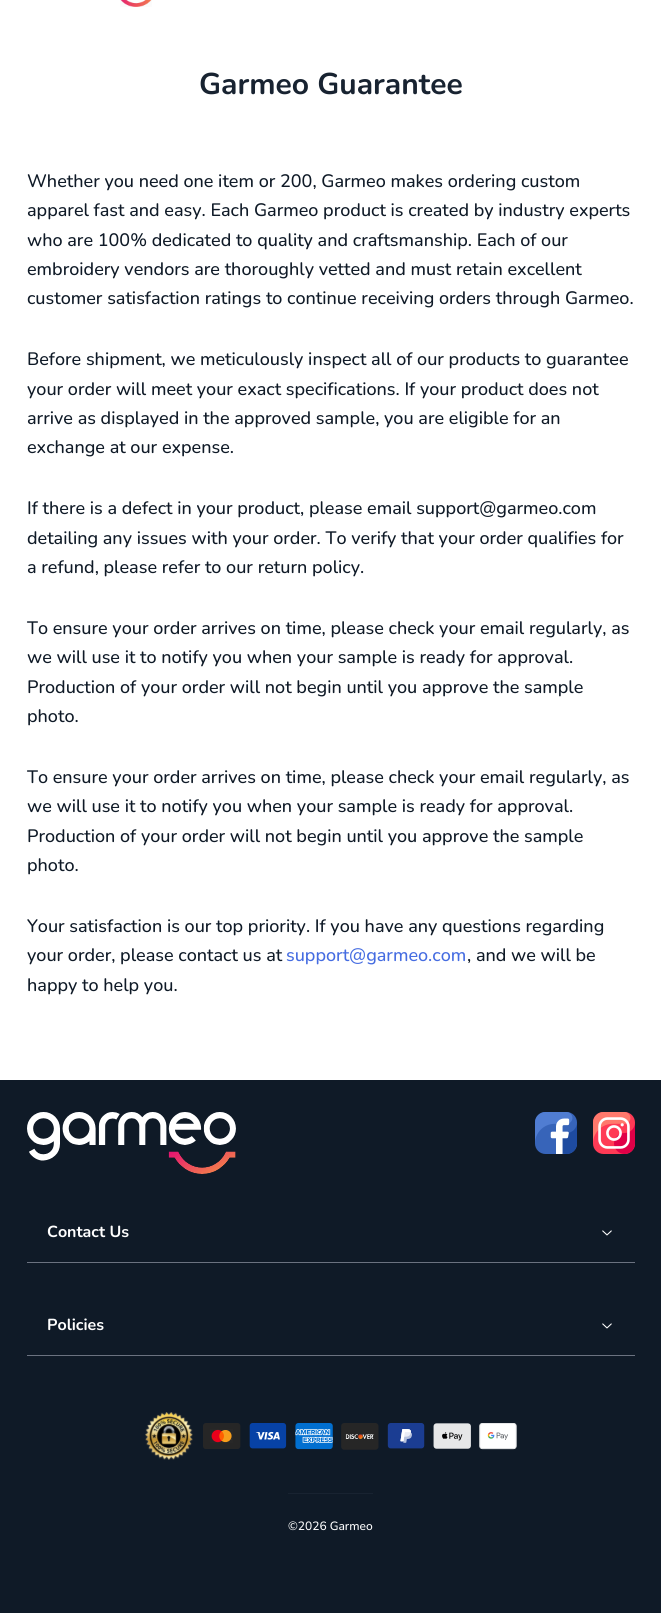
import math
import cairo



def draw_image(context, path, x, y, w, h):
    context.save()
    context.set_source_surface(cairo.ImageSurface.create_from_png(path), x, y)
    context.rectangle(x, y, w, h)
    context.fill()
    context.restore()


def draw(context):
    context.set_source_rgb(15 / 255, 26 / 255, 39 / 255)
    context.paint()
    context.set_source_rgb(1, 1, 1)
    context.rectangle(0, 0, 661, 1080)
    context.fill()
    draw_image(context, "images/1.png", 120, 0, 32, 7)
    draw_image(context, "images/2.png", 27, 1112, 209, 62)
    draw_image(context, "images/3.png", 535, 1112, 42, 42)
    draw_image(context, "images/4.png", 593, 1112, 42, 42)
    context.set_source_rgb(107 / 255, 114 / 255, 128 / 255)
    context.rectangle(27, 1262, 608, 1)
    context.fill()
    draw_image(context, "images/5.png", 602, 1230, 10, 6)
    context.rectangle(27, 1355, 608, 1)
    context.fill()
    draw_image(context, "images/5.png", 602, 1323, 10, 6)
    draw_image(context, "images/6.png", 145, 1412, 48, 48)
    draw_image(context, "images/7.png", 203, 1423, 38, 26)
    draw_image(context, "images/8.png", 249, 1423, 38, 26)
    draw_image(context, "images/9.png", 295, 1423, 38, 27)
    draw_image(context, "images/10.png", 341, 1423, 38, 27)
    draw_image(context, "images/11.png", 387, 1423, 38, 26)
    draw_image(context, "images/12.png", 433, 1423, 38, 26)
    draw_image(context, "images/13.png", 479, 1423, 38, 27)
    context.set_source_rgb(24 / 255, 35 / 255, 49 / 255)
    context.rectangle(288, 1493, 85, 1)
    context.fill()
    context.select_font_face("Nunito", cairo.FontSlant.NORMAL, cairo.FontWeight.BOLD)
    context.set_font_size(30)
    context.move_to(199, 94)
    context.show_text("Garmeo Guarantee")
    context.select_font_face("Nunito Medium")
    context.set_font_size(18)
    context.set_source_rgb(15 / 255, 26 / 255, 39 / 255)
    context.move_to(27, 187)
    context.show_text("Whether you need one item or 200, Garmeo makes ordering custom")
    context.move_to(27, 216)
    context.show_text("apparel fast and easy. Each Garmeo product is created by industry experts")
    context.move_to(27, 246)
    context.show_text("who are 100% dedicated to quality and craftsmanship. Each of our")
    context.move_to(27, 275)
    context.show_text("embroidery vendors are thoroughly vetted and must retain excellent")
    context.move_to(27, 304)
    context.show_text("customer satisfaction ratings to continue receiving orders through Garmeo.")
    context.move_to(27, 365)
    context.show_text("Before shipment, we meticulously inspect all of our products to guarantee")
    context.move_to(27, 395)
    context.show_text("your order will meet your exact specifications. If your product does not")
    context.move_to(27, 424)
    context.show_text("arrive as displayed in the approved sample, you are eligible for an")
    context.move_to(27, 453)
    context.show_text("exchange at our expense.")
    context.move_to(27, 514)
    context.show_text("If there is a defect in your product, please email support@garmeo.com")
    context.move_to(27, 544)
    context.show_text("detailing any issues with your order. To verify that your order qualifies for")
    context.move_to(27, 573)
    context.show_text("a refund, please refer to our return policy.")
    context.move_to(27, 634)
    context.show_text("To ensure your order arrives on time, please check your email regularly, as")
    context.move_to(27, 663)
    context.show_text("we will use it to notify you when your sample is ready for approval.")
    context.move_to(27, 693)
    context.show_text("Production of your order will not begin until you approve the sample")
    context.move_to(27, 722)
    context.show_text("photo.")
    context.move_to(27, 783)
    context.show_text("To ensure your order arrives on time, please check your email regularly, as")
    context.move_to(27, 812)
    context.show_text("we will use it to notify you when your sample is ready for approval.")
    context.move_to(27, 842)
    context.show_text("Production of your order will not begin until you approve the sample")
    context.move_to(27, 871)
    context.show_text("photo.")
    context.move_to(27, 932)
    context.show_text("Your satisfaction is our top priority. If you have any questions regarding")
    context.move_to(27, 961)
    context.show_text("your order, please contact us at")
    context.set_source_rgb(69 / 255, 108 / 255, 225 / 255)
    context.move_to(286, 961)
    context.show_text("support@garmeo.com")
    context.set_source_rgb(15 / 255, 26 / 255, 39 / 255)
    context.move_to(467, 961)
    context.show_text(", and we will be")
    context.move_to(27, 991)
    context.show_text("happy to help you.")
    context.select_font_face("Nunito", cairo.FontSlant.NORMAL, cairo.FontWeight.BOLD)
    context.set_font_size(16)
    context.set_source_rgb(1, 1, 1)
    context.move_to(47, 1237)
    context.show_text("Contact Us")
    context.move_to(47, 1330)
    context.show_text("Policies")
    context.select_font_face("Nunito Medium")
    context.set_font_size(12)
    context.move_to(288, 1530)
    context.show_text("©2026 Garmeo")


surface = cairo.ImageSurface(cairo.Format.RGB24, 661, 1613)
context = cairo.Context(surface)
options = cairo.FontOptions()
options.set_hint_metrics(cairo.HintMetrics.OFF)
options.set_hint_style(cairo.HintStyle.NONE)
context.set_font_options(options)
context.set_miter_limit(4)
draw(context)
surface.write_to_png("out.png")
